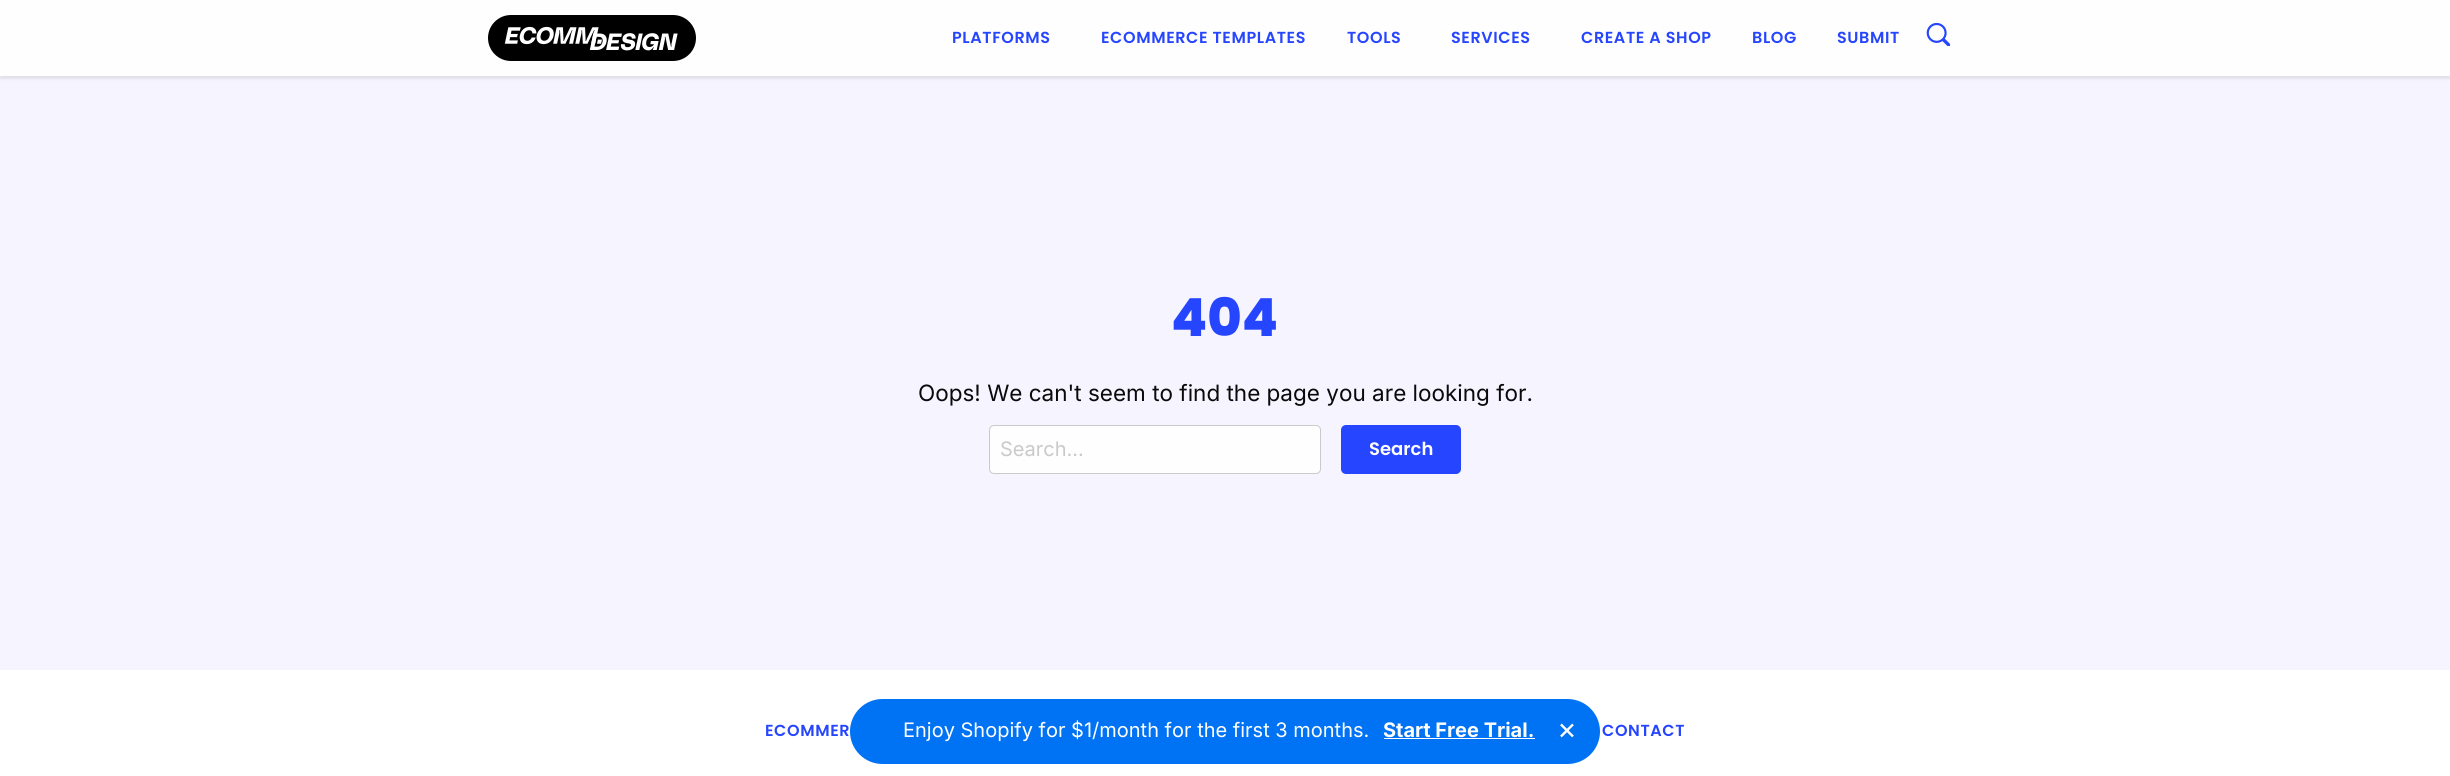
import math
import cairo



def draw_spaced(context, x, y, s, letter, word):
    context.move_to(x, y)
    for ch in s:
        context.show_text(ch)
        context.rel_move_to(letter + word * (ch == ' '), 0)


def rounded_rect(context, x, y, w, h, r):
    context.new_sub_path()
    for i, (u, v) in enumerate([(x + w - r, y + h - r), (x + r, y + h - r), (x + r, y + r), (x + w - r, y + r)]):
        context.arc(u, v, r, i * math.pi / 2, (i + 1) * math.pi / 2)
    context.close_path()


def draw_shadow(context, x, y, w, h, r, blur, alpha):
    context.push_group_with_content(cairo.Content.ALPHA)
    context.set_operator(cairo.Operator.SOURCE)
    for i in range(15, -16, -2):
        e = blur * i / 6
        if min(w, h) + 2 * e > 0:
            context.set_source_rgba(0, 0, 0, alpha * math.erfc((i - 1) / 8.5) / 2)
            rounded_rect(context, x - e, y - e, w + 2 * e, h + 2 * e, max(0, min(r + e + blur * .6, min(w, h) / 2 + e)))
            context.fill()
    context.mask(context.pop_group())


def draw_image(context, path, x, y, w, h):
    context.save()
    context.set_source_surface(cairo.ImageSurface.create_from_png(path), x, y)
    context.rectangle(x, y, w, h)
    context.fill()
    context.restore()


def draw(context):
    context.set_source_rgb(245 / 255, 244 / 255, 1)
    context.paint()
    context.set_source_rgb(50 / 255, 50 / 255, 50 / 255)
    draw_shadow(context, 0, 3, 2450, 76, 0, 1, 0.1)
    context.set_source_rgb(254 / 255, 254 / 255, 254 / 255)
    context.rectangle(0, 0, 2450, 76)
    context.fill()
    draw_image(context, "images/1.png", 488, 15, 208, 46)
    draw_image(context, "images/2.png", 1926, 22, 24, 24)
    rounded_rect(context, 989.5, 425.5, 331, 48, 4.5)
    context.fill_preserve()
    context.set_source_rgb(202 / 255, 202 / 255, 202 / 255)
    context.set_line_width(1)
    context.stroke()
    context.set_source_rgb(38 / 255, 69 / 255, 1)
    rounded_rect(context, 1341, 425, 120, 49, 5)
    context.fill()
    context.set_source_rgb(1, 1, 1)
    context.rectangle(0, 670, 2450, 106)
    context.fill()
    context.set_source_rgb(0, 114 / 255, 244 / 255)
    rounded_rect(context, 850, 699, 750, 65, 32.5)
    context.fill()
    context.set_source_rgb(1, 1, 1)
    context.rectangle(1384, 738, 151, 1)
    context.fill()
    context.select_font_face("Poppins SemiBold")
    context.set_font_size(16)
    context.set_source_rgb(38 / 255, 69 / 255, 1)
    draw_spaced(context, 952, 43, "PLATFORMS", 0.6, 0)
    draw_spaced(context, 1101, 43, "ECOMMERCE TEMPLATES", 0.6, 0)
    draw_spaced(context, 1347, 43, "TOOLS", 0.6, 0)
    draw_spaced(context, 1451, 43, "SERVICES", 0.6, 0)
    draw_spaced(context, 1581, 43, "CREATE A SHOP", 0.6, 0)
    draw_spaced(context, 1752, 43, "BLOG", 0.6, 0)
    draw_spaced(context, 1837, 43, "SUBMIT", 0.6, 0)
    context.select_font_face("Poppins ExtraBold")
    context.set_font_size(52.5)
    context.move_to(1171, 336)
    context.show_text("404")
    context.select_font_face("Inter")
    context.set_font_size(22.5)
    context.set_source_rgb(10 / 255, 10 / 255, 10 / 255)
    context.move_to(918, 401)
    context.show_text("Oops! We can't seem to find the page you are looking for.")
    context.set_font_size(20)
    context.set_source_rgb(202 / 255, 202 / 255, 202 / 255)
    context.move_to(1000, 456)
    context.show_text("Search...")
    context.select_font_face("Poppins SemiBold")
    context.set_font_size(18)
    context.set_source_rgb(254 / 255, 254 / 255, 254 / 255)
    context.move_to(1369, 455)
    context.show_text("Search")
    context.set_font_size(16)
    context.set_source_rgb(38 / 255, 69 / 255, 1)
    draw_spaced(context, 765, 736, "ECOMMER", 0.6, 0)
    draw_spaced(context, 1602, 736, "CONTACT", 0.6, 0)
    context.select_font_face("Inter")
    context.set_font_size(20)
    context.set_source_rgb(254 / 255, 254 / 255, 254 / 255)
    context.move_to(903, 737)
    context.show_text("Enjoy Shopify for $1/month for the first 3 months.")
    context.select_font_face("Inter", cairo.FontSlant.NORMAL, cairo.FontWeight.BOLD)
    context.move_to(1383, 737)
    context.show_text("Start Free Trial.")
    context.select_font_face("Inter")
    context.set_font_size(30)
    context.move_to(1557, 739)
    context.show_text("×")


surface = cairo.ImageSurface(cairo.Format.RGB24, 2450, 776)
context = cairo.Context(surface)
options = cairo.FontOptions()
options.set_hint_metrics(cairo.HintMetrics.OFF)
options.set_hint_style(cairo.HintStyle.NONE)
context.set_font_options(options)
context.set_miter_limit(4)
draw(context)
surface.write_to_png("out.png")
